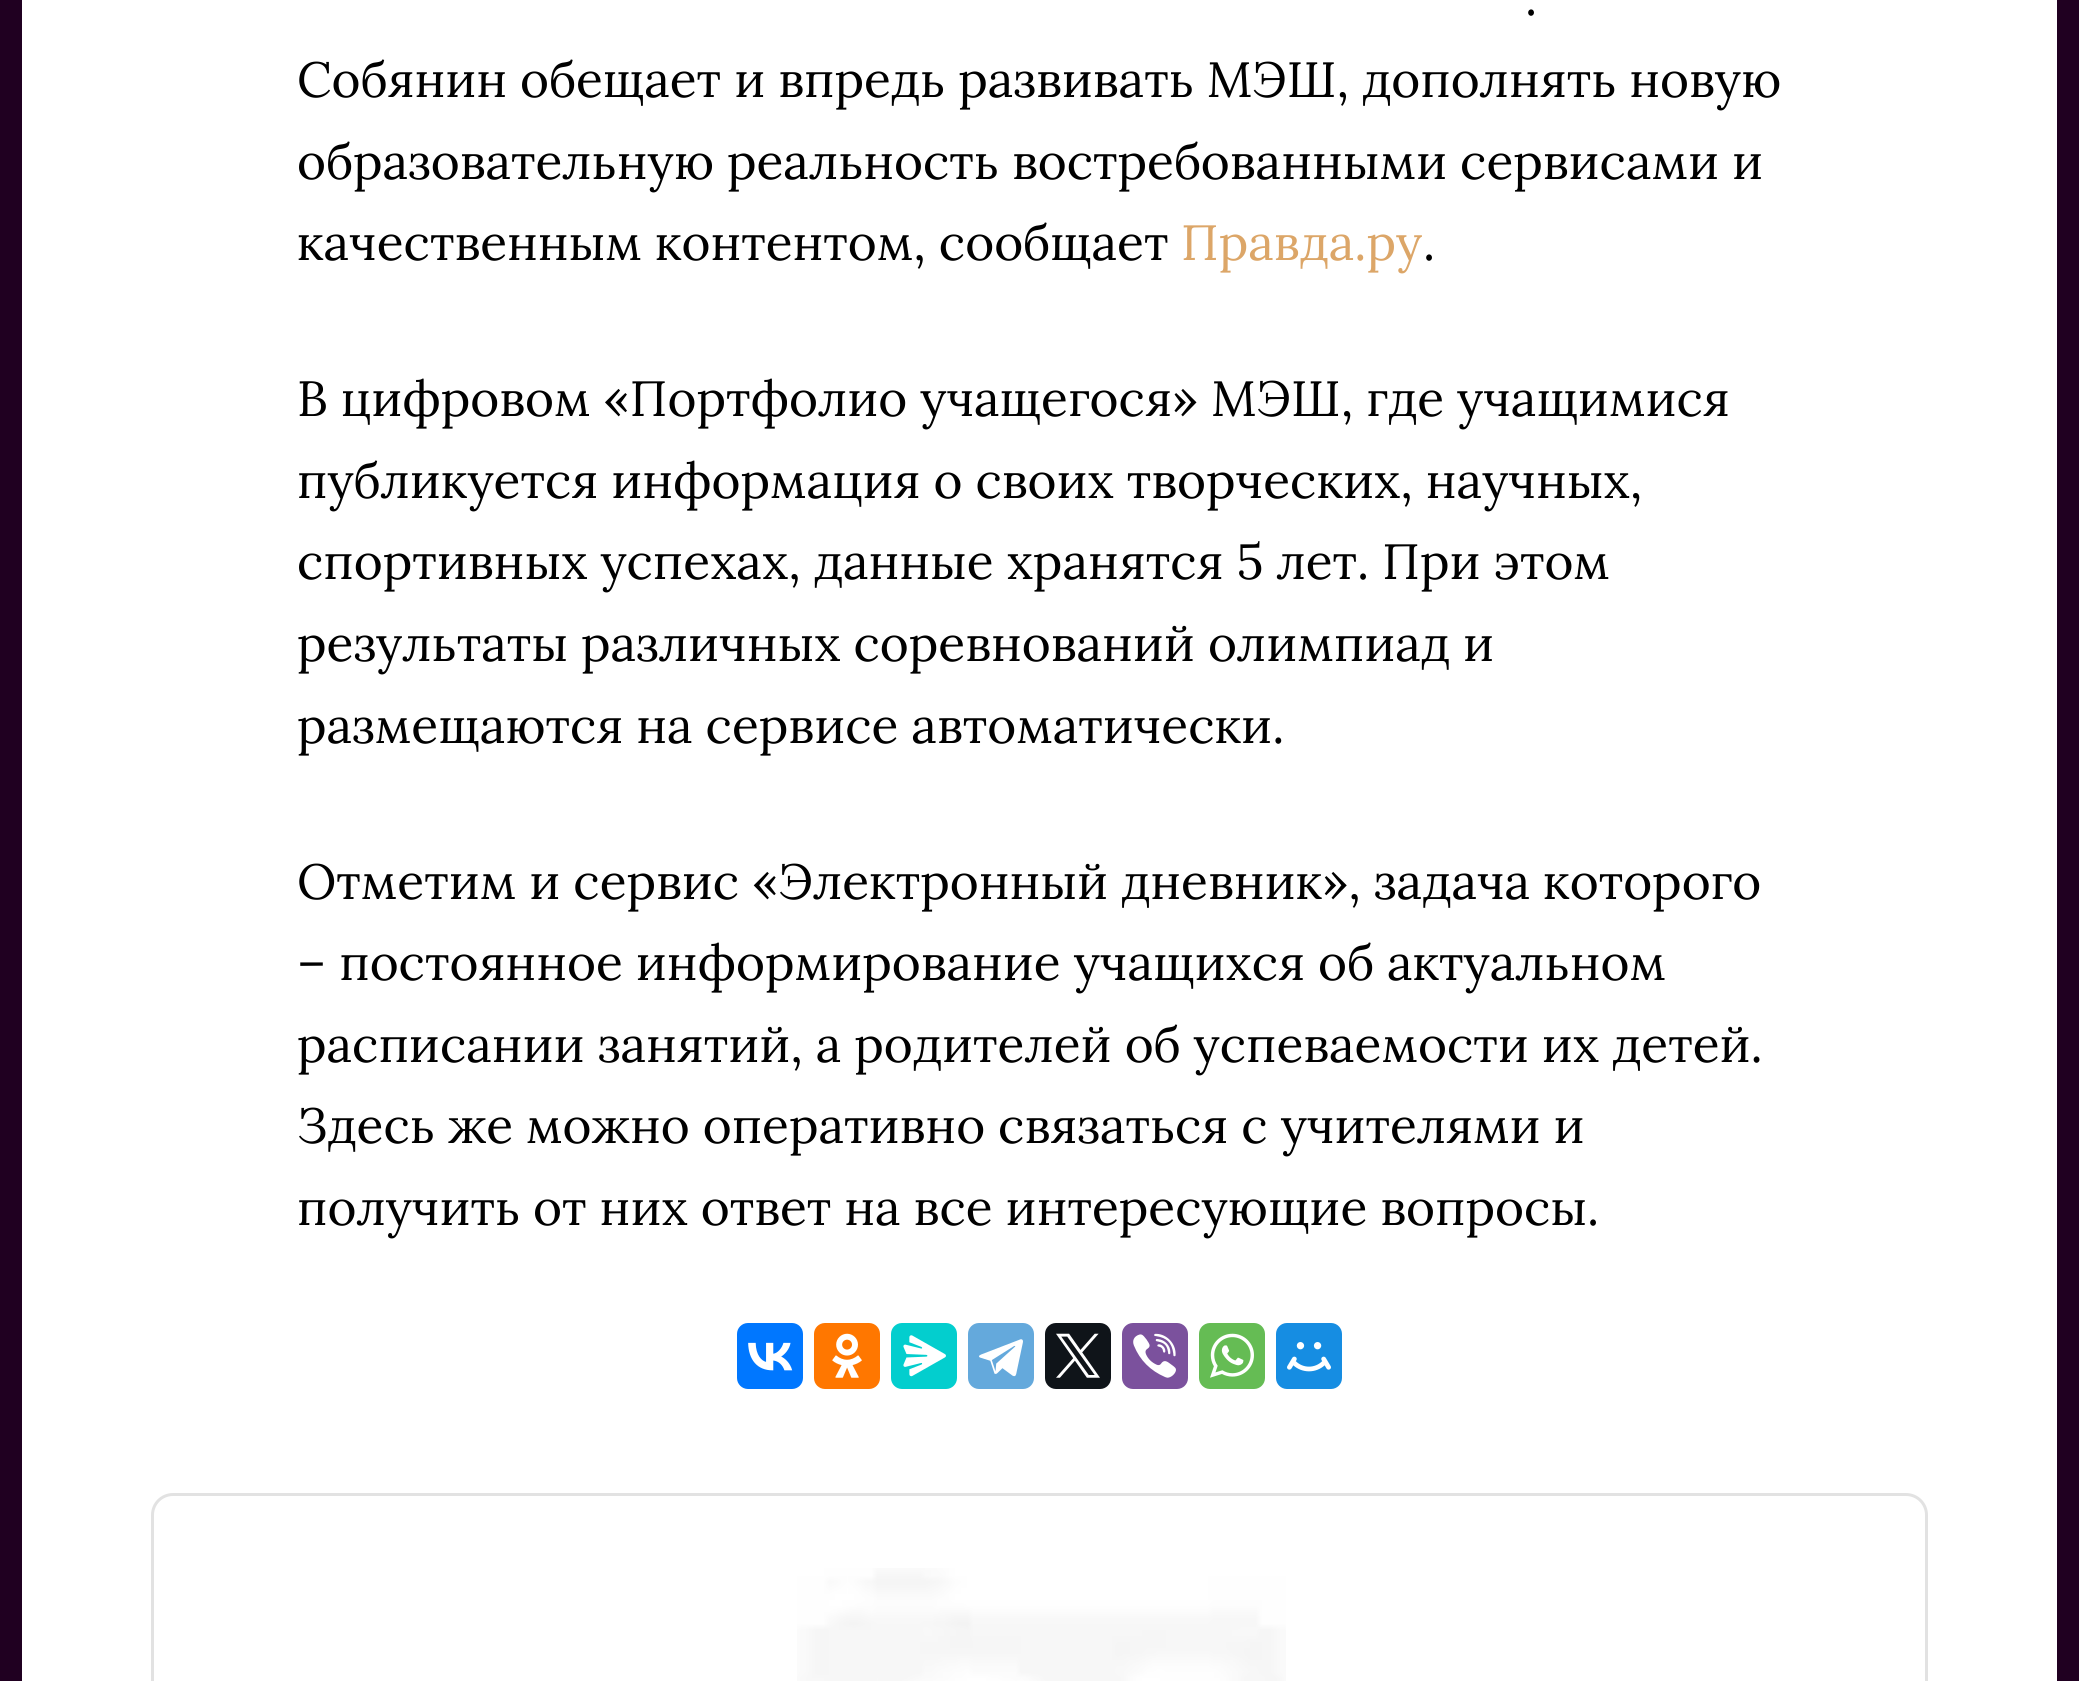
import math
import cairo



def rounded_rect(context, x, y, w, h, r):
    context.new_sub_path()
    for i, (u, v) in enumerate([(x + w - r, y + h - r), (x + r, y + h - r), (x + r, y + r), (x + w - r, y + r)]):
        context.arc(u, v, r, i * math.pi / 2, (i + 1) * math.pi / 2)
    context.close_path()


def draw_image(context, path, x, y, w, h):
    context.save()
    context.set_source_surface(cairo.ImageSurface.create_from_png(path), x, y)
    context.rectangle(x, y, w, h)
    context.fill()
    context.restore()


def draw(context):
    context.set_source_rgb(32 / 255, 0, 33 / 255)
    context.paint()
    context.set_source_rgb(1, 1, 1)
    context.rectangle(22, 0, 2035, 1681)
    context.fill()
    context.set_source_rgb(0, 119 / 255, 1)
    rounded_rect(context, 737, 1323, 66, 66, 11)
    context.fill()
    draw_image(context, "images/1.png", 748, 1342, 45, 29)
    context.set_source_rgb(1, 119 / 255, 0)
    rounded_rect(context, 814, 1323, 66, 66, 11)
    context.fill()
    draw_image(context, "images/2.png", 832, 1333, 30, 45)
    context.set_source_rgb(3 / 255, 206 / 255, 206 / 255)
    rounded_rect(context, 891, 1323, 66, 66, 11)
    context.fill()
    draw_image(context, "images/3.png", 903, 1335, 43, 42)
    context.set_source_rgb(100 / 255, 169 / 255, 220 / 255)
    rounded_rect(context, 968, 1323, 66, 66, 11)
    context.fill()
    draw_image(context, "images/4.png", 979, 1339, 44, 38)
    context.set_source_rgb(15 / 255, 20 / 255, 25 / 255)
    rounded_rect(context, 1045, 1323, 66, 66, 11)
    context.fill()
    draw_image(context, "images/5.png", 1056, 1333, 44, 45)
    context.set_source_rgb(123 / 255, 81 / 255, 157 / 255)
    rounded_rect(context, 1122, 1323, 66, 66, 11)
    context.fill()
    draw_image(context, "images/6.png", 1133, 1333, 43, 45)
    context.set_source_rgb(101 / 255, 188 / 255, 84 / 255)
    rounded_rect(context, 1199, 1323, 66, 66, 11)
    context.fill()
    draw_image(context, "images/7.png", 1210, 1333, 44, 45)
    context.set_source_rgb(22 / 255, 141 / 255, 226 / 255)
    rounded_rect(context, 1276, 1323, 66, 66, 11)
    context.fill()
    draw_image(context, "images/8.png", 1287, 1342, 44, 30)
    rounded_rect(context, 152.5, 1494.5, 1774, 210, 20.5)
    context.set_source_rgb(226 / 255, 226 / 255, 226 / 255)
    context.set_line_width(3)
    context.stroke()
    draw_image(context, "images/9.png", 797, 1568, 489, 113)
    context.select_font_face("Lora")
    context.set_font_size(49.5)
    context.set_source_rgb(0, 0, 0)
    context.move_to(1525, 15)
    context.show_text(".")
    context.move_to(297, 97)
    context.show_text("Собянин обещает и впредь развивать МЭШ, дополнять новую")
    context.move_to(297, 179)
    context.show_text("образовательную реальность востребованными сервисами и")
    context.move_to(297, 260)
    context.show_text("качественным контентом, сообщает")
    context.set_source_rgb(220 / 255, 166 / 255, 104 / 255)
    context.move_to(1181, 260)
    context.show_text("Правда.ру")
    context.set_source_rgb(0, 0, 0)
    context.move_to(1423, 260)
    context.show_text(".")
    context.move_to(297, 416)
    context.show_text("В цифровом «Портфолио учащегося» МЭШ, где учащимися")
    context.move_to(297, 498)
    context.show_text("публикуется информация о своих творческих, научных,")
    context.move_to(297, 579)
    context.show_text("спортивных успехах, данные хранятся 5 лет. При этом")
    context.move_to(297, 661)
    context.show_text("результаты различных соревнований олимпиад и")
    context.move_to(297, 743)
    context.show_text("размещаются на сервисе автоматически.")
    context.move_to(297, 899)
    context.show_text("Отметим и сервис «Электронный дневник», задача которого")
    context.move_to(297, 980)
    context.show_text("– постоянное информирование учащихся об актуальном")
    context.move_to(297, 1062)
    context.show_text("расписании занятий, а родителей об успеваемости их детей.")
    context.move_to(297, 1143)
    context.show_text("Здесь же можно оперативно связаться с учителями и")
    context.move_to(297, 1225)
    context.show_text("получить от них ответ на все интересующие вопросы.")


surface = cairo.ImageSurface(cairo.Format.RGB24, 2079, 1681)
context = cairo.Context(surface)
options = cairo.FontOptions()
options.set_hint_metrics(cairo.HintMetrics.OFF)
options.set_hint_style(cairo.HintStyle.NONE)
context.set_font_options(options)
context.set_miter_limit(4)
draw(context)
surface.write_to_png("out.png")
